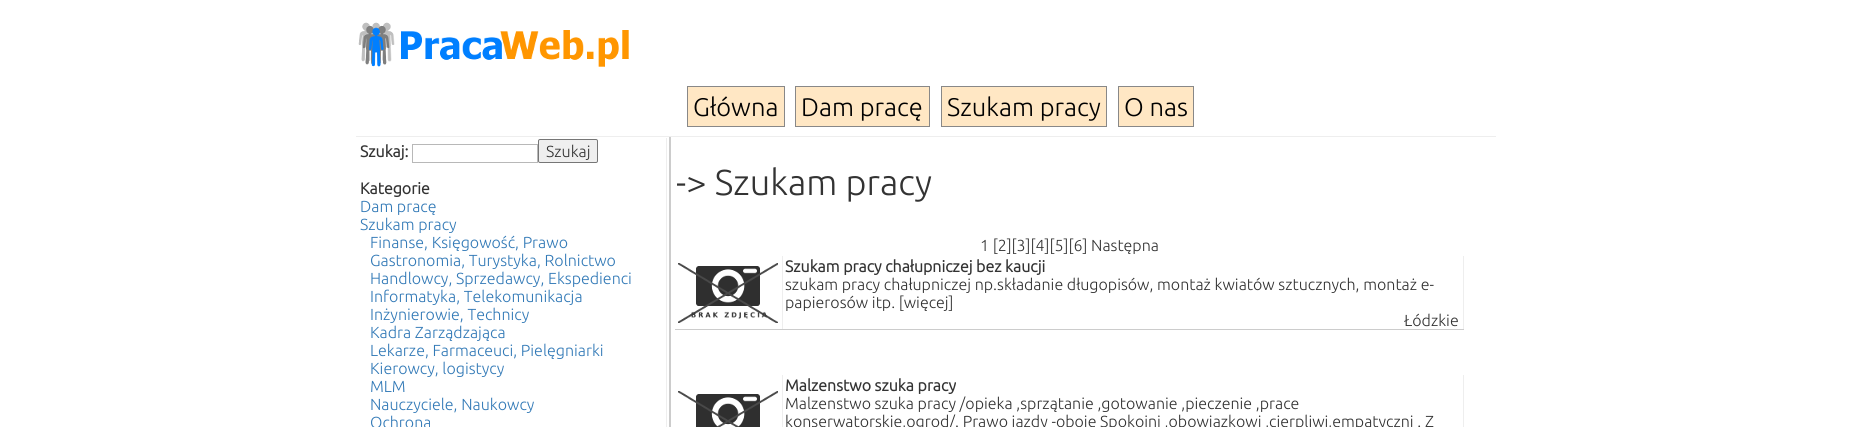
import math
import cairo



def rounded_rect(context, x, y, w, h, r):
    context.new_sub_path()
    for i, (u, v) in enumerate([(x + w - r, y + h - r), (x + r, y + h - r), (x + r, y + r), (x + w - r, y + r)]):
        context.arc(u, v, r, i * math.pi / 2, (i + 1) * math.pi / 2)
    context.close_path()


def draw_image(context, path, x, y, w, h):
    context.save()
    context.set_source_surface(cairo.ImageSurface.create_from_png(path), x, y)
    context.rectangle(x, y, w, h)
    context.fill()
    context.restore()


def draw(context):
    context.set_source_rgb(1, 1, 1)
    context.paint()
    draw_image(context, "images/1.png", 358, 22, 271, 45)
    context.set_source_rgb(238 / 255, 238 / 255, 238 / 255)
    context.rectangle(356, 136, 1140, 1)
    context.fill()
    context.set_source_rgb(1, 231 / 255, 196 / 255)
    context.rectangle(687.5, 86.5, 97, 40)
    context.fill_preserve()
    context.set_source_rgb(136 / 255, 136 / 255, 136 / 255)
    context.set_line_width(1)
    context.stroke()
    context.set_source_rgb(1, 231 / 255, 196 / 255)
    context.rectangle(795.5, 86.5, 134, 40)
    context.fill_preserve()
    context.set_source_rgb(136 / 255, 136 / 255, 136 / 255)
    context.stroke()
    context.set_source_rgb(1, 231 / 255, 196 / 255)
    context.rectangle(941.5, 86.5, 165, 40)
    context.fill_preserve()
    context.set_source_rgb(136 / 255, 136 / 255, 136 / 255)
    context.stroke()
    context.set_source_rgb(1, 231 / 255, 196 / 255)
    context.rectangle(1118.5, 86.5, 75, 40)
    context.fill_preserve()
    context.set_source_rgb(136 / 255, 136 / 255, 136 / 255)
    context.stroke()
    context.set_source_rgb(204 / 255, 204 / 255, 204 / 255)
    context.rectangle(669, 137, 2, 290)
    context.fill()
    context.set_source_rgb(238 / 255, 238 / 255, 238 / 255)
    context.rectangle(666, 138, 1, 289)
    context.fill()
    context.rectangle(412.5, 144.5, 125, 18)
    context.set_source_rgb(184 / 255, 184 / 255, 184 / 255)
    context.stroke()
    context.set_source_rgb(239 / 255, 239 / 255, 239 / 255)
    rounded_rect(context, 538.5, 139.5, 59, 23, 1.5)
    context.fill_preserve()
    context.set_source_rgb(118 / 255, 118 / 255, 118 / 255)
    context.stroke()
    context.set_source_rgb(238 / 255, 238 / 255, 238 / 255)
    context.rectangle(1463, 256, 1, 74)
    context.fill()
    context.set_source_rgb(204 / 255, 204 / 255, 204 / 255)
    context.rectangle(782, 329, 682, 1)
    context.fill()
    context.set_source_rgb(238 / 255, 238 / 255, 238 / 255)
    context.rectangle(782, 256, 1, 74)
    context.fill()
    context.set_source_rgb(204 / 255, 204 / 255, 204 / 255)
    context.rectangle(675, 329, 108, 1)
    context.fill()
    draw_image(context, "images/2.png", 678, 263, 100, 60)
    context.set_source_rgb(238 / 255, 238 / 255, 238 / 255)
    context.rectangle(782, 375, 1, 52)
    context.fill()
    draw_image(context, "images/3.png", 678, 391, 100, 36)
    context.rectangle(1463, 375, 1, 52)
    context.fill()
    context.select_font_face("Ubuntu Light")
    context.set_font_size(25.5)
    context.set_source_rgb(0, 0, 0)
    context.move_to(693, 116)
    context.show_text("Główna")
    context.move_to(801, 116)
    context.show_text("Dam pracę")
    context.move_to(947, 116)
    context.show_text("Szukam pracy")
    context.move_to(1124, 116)
    context.show_text("O nas")
    context.select_font_face("Ubuntu", cairo.FontSlant.NORMAL, cairo.FontWeight.BOLD)
    context.set_font_size(16)
    context.set_source_rgb(51 / 255, 51 / 255, 51 / 255)
    context.move_to(360, 157)
    context.show_text("Szukaj:")
    context.select_font_face("Ubuntu Light")
    context.move_to(546, 157)
    context.show_text("Szukaj")
    context.select_font_face("Ubuntu", cairo.FontSlant.NORMAL, cairo.FontWeight.BOLD)
    context.move_to(360, 194)
    context.show_text("Kategorie")
    context.select_font_face("Ubuntu Light")
    context.set_source_rgb(51 / 255, 122 / 255, 183 / 255)
    context.move_to(360, 212)
    context.show_text("Dam pracę")
    context.move_to(360, 230)
    context.show_text("Szukam pracy")
    context.move_to(370, 248)
    context.show_text("Finanse, Księgowość, Prawo")
    context.move_to(370, 266)
    context.show_text("Gastronomia, Turystyka, Rolnictwo")
    context.move_to(370, 284)
    context.show_text("Handlowcy, Sprzedawcy, Ekspedienci")
    context.move_to(370, 302)
    context.show_text("Informatyka, Telekomunikacja")
    context.move_to(370, 320)
    context.show_text("Inżynierowie, Technicy")
    context.move_to(370, 338)
    context.show_text("Kadra Zarządzająca")
    context.move_to(370, 356)
    context.show_text("Lekarze, Farmaceuci, Pielęgniarki")
    context.move_to(370, 374)
    context.show_text("Kierowcy, logistycy")
    context.move_to(370, 392)
    context.show_text("MLM")
    context.move_to(370, 410)
    context.show_text("Nauczyciele, Naukowcy")
    context.move_to(370, 428)
    context.show_text("Ochrona")
    context.set_font_size(36)
    context.set_source_rgb(51 / 255, 51 / 255, 51 / 255)
    context.move_to(676, 195)
    context.show_text("-> Szukam pracy")
    context.set_font_size(16)
    context.move_to(980, 251)
    context.show_text("1 [2][3][4][5][6] Następna")
    context.select_font_face("Ubuntu", cairo.FontSlant.NORMAL, cairo.FontWeight.BOLD)
    context.move_to(785, 272)
    context.show_text("Szukam pracy chałupniczej bez kaucji")
    context.select_font_face("Ubuntu Light")
    context.move_to(785, 290)
    context.show_text("szukam pracy chałupniczej np.składanie długopisów, montaż kwiatów sztucznych, montaż e-")
    context.move_to(785, 308)
    context.show_text("papierosów itp. [więcej]")
    context.move_to(1404, 326)
    context.show_text("Łódzkie")
    context.select_font_face("Ubuntu", cairo.FontSlant.NORMAL, cairo.FontWeight.BOLD)
    context.move_to(785, 391)
    context.show_text("Malzenstwo szuka pracy")
    context.select_font_face("Ubuntu Light")
    context.move_to(785, 409)
    context.show_text("Malzenstwo szuka pracy /opieka ,sprzątanie ,gotowanie ,pieczenie ,prace")
    context.move_to(785, 427)
    context.show_text("konserwatorskie,ogrod/. Prawo jazdy -oboje Spokojni ,obowiązkowi ,cierpliwi,empatyczni . Z")


surface = cairo.ImageSurface(cairo.Format.RGB24, 1851, 427)
context = cairo.Context(surface)
options = cairo.FontOptions()
options.set_hint_metrics(cairo.HintMetrics.OFF)
options.set_hint_style(cairo.HintStyle.NONE)
context.set_font_options(options)
context.set_miter_limit(4)
draw(context)
surface.write_to_png("out.png")
